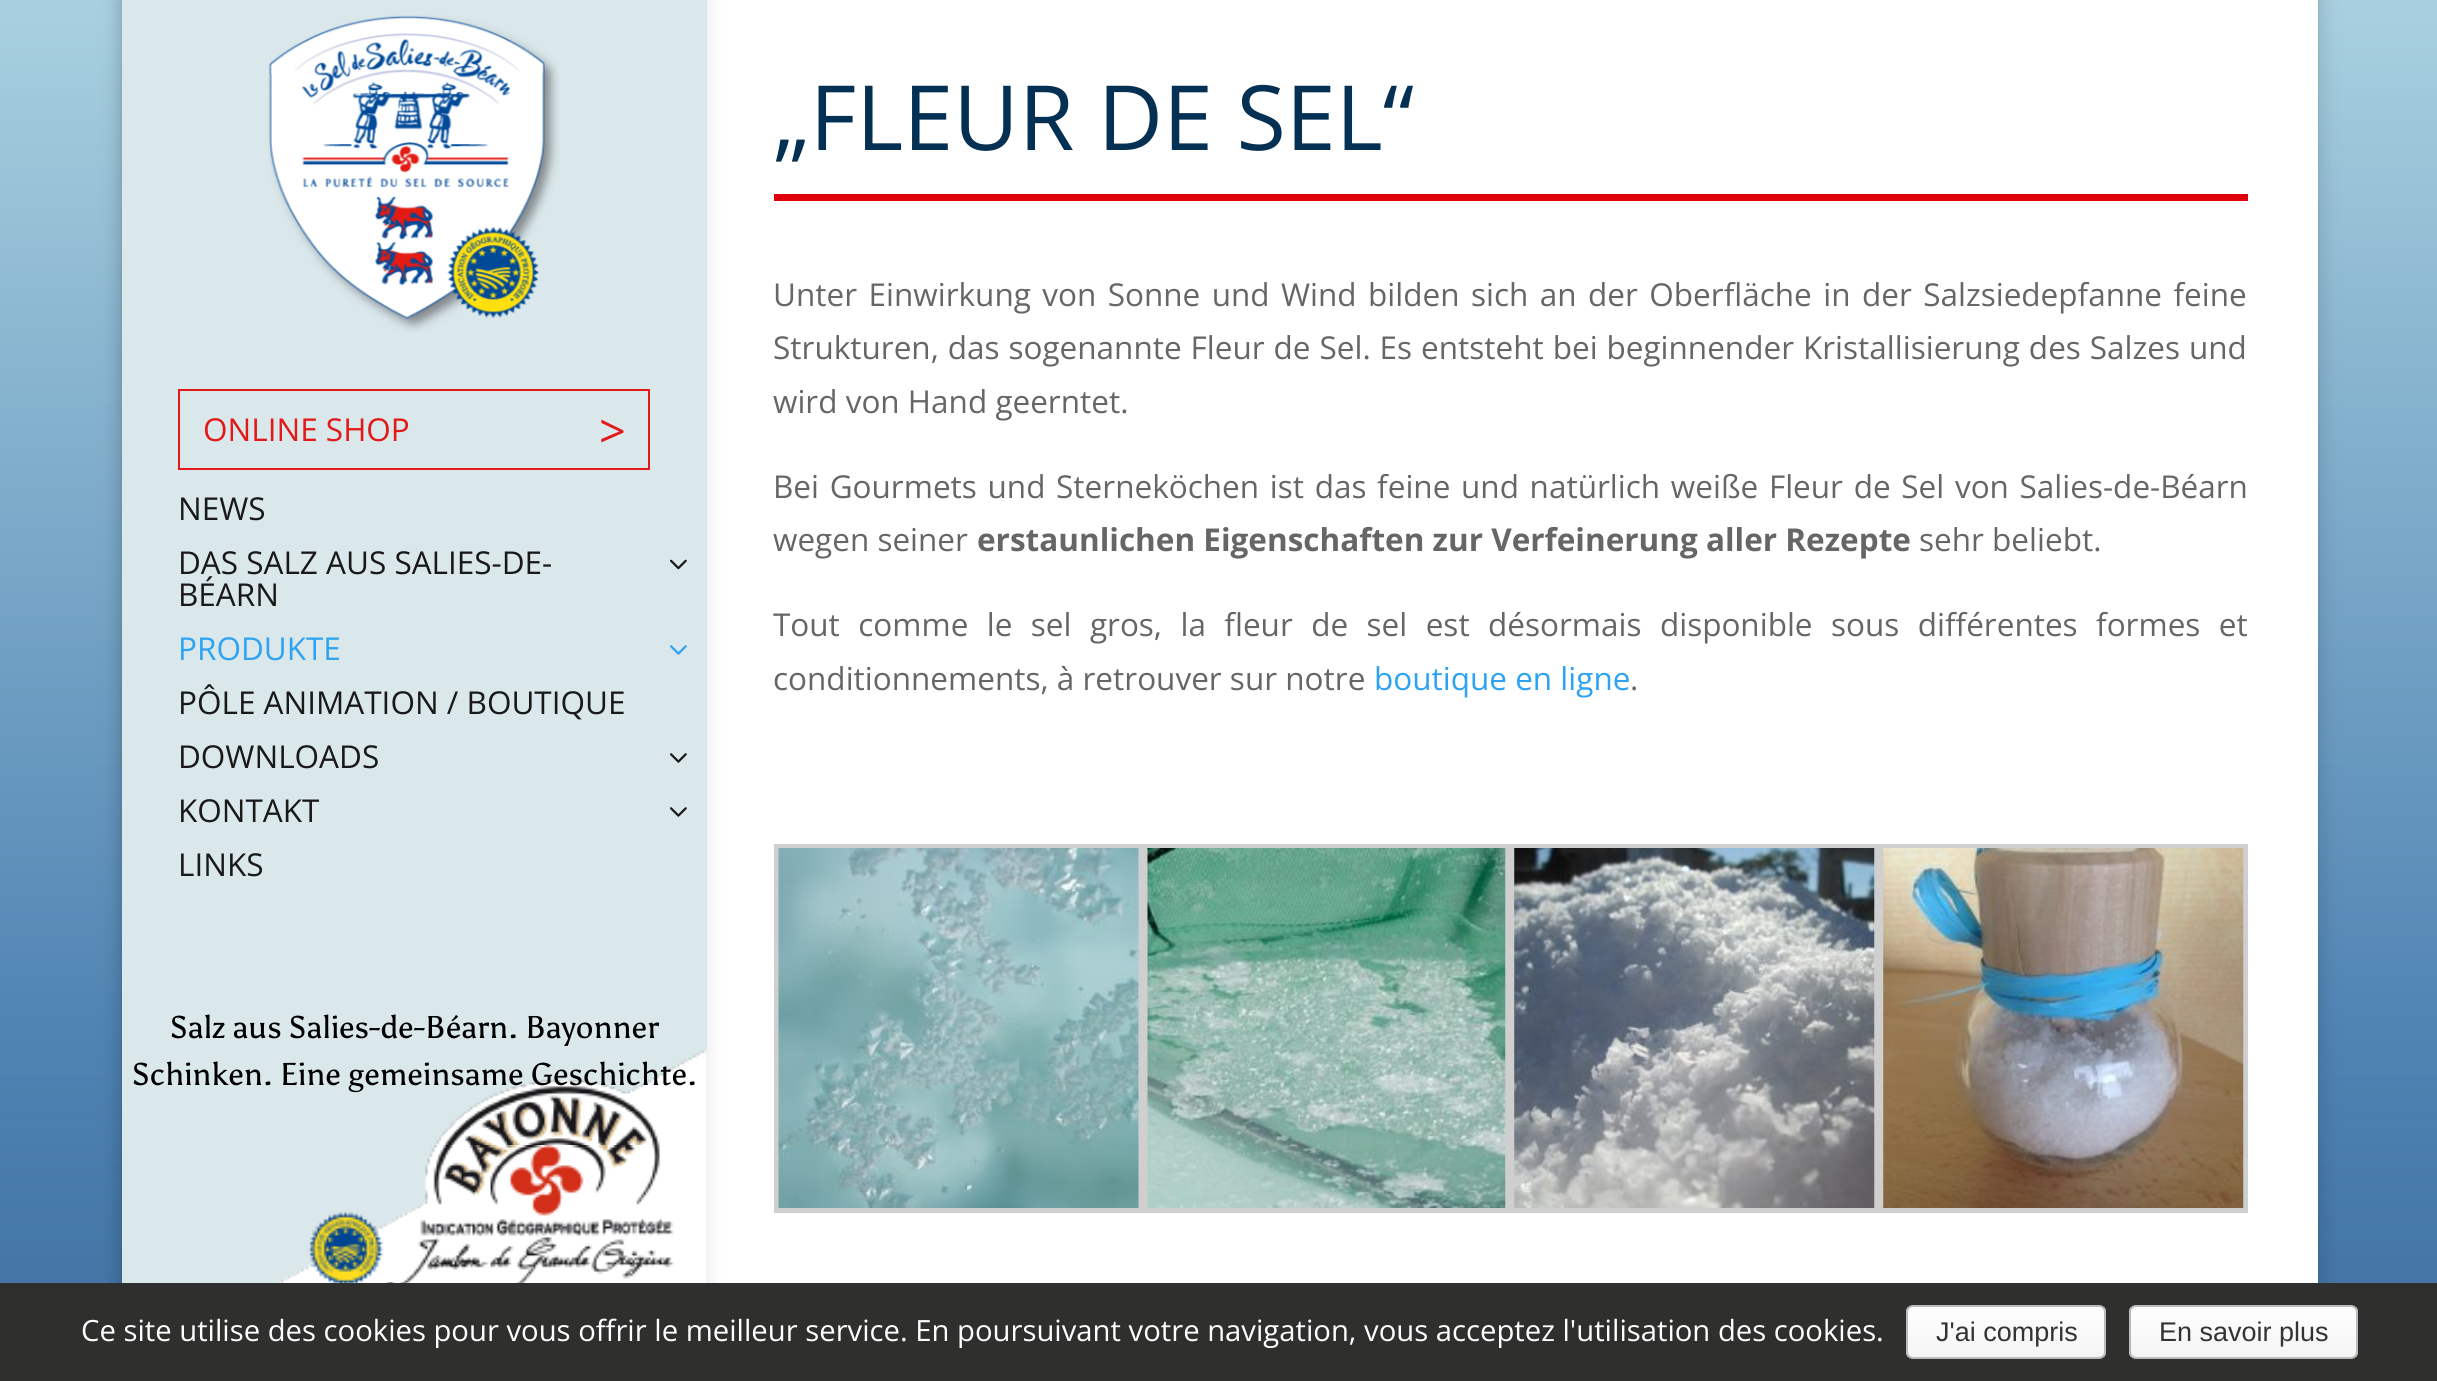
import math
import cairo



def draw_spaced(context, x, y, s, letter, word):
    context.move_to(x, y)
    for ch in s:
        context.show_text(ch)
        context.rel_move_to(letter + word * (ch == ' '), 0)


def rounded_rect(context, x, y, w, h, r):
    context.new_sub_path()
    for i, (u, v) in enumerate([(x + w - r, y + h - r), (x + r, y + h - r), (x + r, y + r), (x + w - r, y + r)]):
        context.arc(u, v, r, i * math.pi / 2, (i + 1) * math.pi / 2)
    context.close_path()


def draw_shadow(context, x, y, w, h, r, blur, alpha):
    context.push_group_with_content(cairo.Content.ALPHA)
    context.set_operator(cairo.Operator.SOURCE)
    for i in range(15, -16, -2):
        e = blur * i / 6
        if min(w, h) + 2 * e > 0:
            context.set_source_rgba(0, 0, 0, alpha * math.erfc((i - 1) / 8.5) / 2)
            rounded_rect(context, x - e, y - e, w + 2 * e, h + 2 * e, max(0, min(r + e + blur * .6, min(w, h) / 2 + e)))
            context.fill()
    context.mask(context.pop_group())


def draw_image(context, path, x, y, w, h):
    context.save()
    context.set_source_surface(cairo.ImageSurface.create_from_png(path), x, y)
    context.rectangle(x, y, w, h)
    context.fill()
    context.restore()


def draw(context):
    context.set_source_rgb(1, 1, 1)
    context.paint()
    draw_image(context, "images/1.png", 0, 0, 2437, 1283)
    context.set_source_rgb(0, 0, 0)
    draw_shadow(context, 122, -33, 2196, 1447, 0, 11, 0.2)
    context.set_source_rgb(1, 1, 1)
    context.rectangle(707, 0, 1611, 1283)
    context.fill()
    context.set_source_rgb(0, 0, 0)
    draw_shadow(context, 122, 0, 585, 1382, 0, 8, 0.1)
    context.set_source_rgb(218 / 255, 232 / 255, 235 / 255)
    context.rectangle(122, 0, 585, 1283)
    context.fill()
    draw_image(context, "images/2.png", 273, 1050, 434, 233)
    draw_image(context, "images/3.png", 268, 15, 292, 317)
    context.rectangle(179, 390, 470, 79)
    context.set_source_rgb(227 / 255, 24 / 255, 24 / 255)
    context.stroke()
    draw_image(context, "images/4.png", 670, 559, 17, 11)
    draw_image(context, "images/5.png", 670, 645, 17, 10)
    draw_image(context, "images/6.png", 670, 753, 17, 10)
    draw_image(context, "images/6.png", 670, 807, 17, 10)
    context.set_source_rgb(224 / 255, 0, 10 / 255)
    context.rectangle(774, 194, 1474, 7)
    context.fill()
    context.rectangle(776.5, 846.5, 364, 364)
    context.set_source_rgb(207 / 255, 207 / 255, 207 / 255)
    context.set_line_width(5)
    context.stroke()
    draw_image(context, "images/7.png", 778, 848, 361, 360)
    context.rectangle(1145.5, 846.5, 362, 364)
    context.stroke()
    draw_image(context, "images/8.png", 1147, 848, 359, 360)
    context.rectangle(1512.5, 846.5, 364, 364)
    context.stroke()
    draw_image(context, "images/9.png", 1514, 848, 361, 360)
    context.rectangle(1881.5, 846.5, 364, 364)
    context.stroke()
    draw_image(context, "images/10.png", 1883, 848, 361, 360)
    context.set_source_rgb(47 / 255, 47 / 255, 46 / 255)
    context.rectangle(0, 1283, 2437, 98)
    context.fill()
    context.save()
    rounded_rect(context, 1906, 1305, 200, 54, 7)
    context.clip()
    gradient = cairo.LinearGradient(2006, 1307, 2006, 1357)
    gradient.add_color_stop_rgba(0, 254 / 255, 254 / 255, 254 / 255, 1)
    gradient.add_color_stop_rgba(1, 244 / 255, 244 / 255, 244 / 255, 1)
    context.set_source(gradient)
    context.rectangle(1906, 1307, 200, 50)
    context.fill()
    context.restore()
    rounded_rect(context, 1907, 1306, 198, 52, 6)
    context.set_source_rgb(187 / 255, 187 / 255, 187 / 255)
    context.set_line_width(2)
    context.stroke()
    context.save()
    rounded_rect(context, 2129, 1305, 229, 54, 7)
    context.clip()
    gradient = cairo.LinearGradient(2243, 1307, 2243, 1357)
    gradient.add_color_stop_rgba(0, 254 / 255, 254 / 255, 254 / 255, 1)
    gradient.add_color_stop_rgba(1, 244 / 255, 244 / 255, 244 / 255, 1)
    context.set_source(gradient)
    context.rectangle(2129, 1307, 229, 50)
    context.fill()
    context.restore()
    rounded_rect(context, 2130, 1306, 227, 52, 6)
    context.stroke()
    context.select_font_face("Open Sans")
    context.set_font_size(31.5)
    context.set_source_rgb(227 / 255, 24 / 255, 24 / 255)
    context.move_to(203, 441)
    context.show_text("ONLINE SHOP")
    context.set_font_size(47)
    context.move_to(599, 448)
    context.show_text(">")
    context.set_font_size(31.5)
    context.set_source_rgb(25 / 255, 25 / 255, 25 / 255)
    context.move_to(178, 520)
    context.show_text("NEWS")
    context.move_to(178, 574)
    context.show_text("DAS SALZ AUS SALIES-DE-")
    context.move_to(178, 606)
    context.show_text("BÉARN")
    context.set_source_rgb(46 / 255, 163 / 255, 242 / 255)
    context.move_to(178, 660)
    context.show_text("PRODUKTE")
    context.set_source_rgb(25 / 255, 25 / 255, 25 / 255)
    context.move_to(178, 714)
    context.show_text("PÔLE ANIMATION / BOUTIQUE")
    context.move_to(178, 768)
    context.show_text("DOWNLOADS")
    context.move_to(178, 822)
    context.show_text("KONTAKT")
    context.move_to(178, 876)
    context.show_text("LINKS")
    context.select_font_face("Asul")
    context.set_source_rgb(0, 0, 0)
    context.move_to(170, 1038)
    context.show_text("Salz aus Salies-de-Béarn. Bayonner")
    context.move_to(132, 1085)
    context.show_text("Schinken. Eine gemeinsame Geschichte.")
    context.select_font_face("Open Sans")
    context.set_font_size(90)
    context.set_source_rgb(4 / 255, 48 / 255, 84 / 255)
    context.move_to(773, 150)
    context.show_text("„FLEUR DE SEL“")
    context.set_font_size(31.5)
    context.set_source_rgb(102 / 255, 102 / 255, 102 / 255)
    draw_spaced(context, 773, 306, "Unter Einwirkung von Sonne und Wind bilden sich an der Oberfläche in der Salzsiedepfanne feine", 0, 3.25)
    draw_spaced(context, 773, 359, "Strukturen, das sogenannte Fleur de Sel. Es entsteht bei beginnender Kristallisierung des Salzes und", 0, 0.75)
    context.move_to(773, 413)
    context.show_text("wird von Hand geerntet.")
    draw_spaced(context, 773, 498, "Bei Gourmets und Sterneköchen ist das feine und natürlich weiße Fleur de Sel von Salies-de-Béarn", 0, 2.5)
    context.move_to(773, 551)
    context.show_text("wegen seiner")
    context.select_font_face("Open Sans", cairo.FontSlant.NORMAL, cairo.FontWeight.BOLD)
    context.move_to(977, 551)
    context.show_text("erstaunlichen Eigenschaften zur Verfeinerung aller Rezepte")
    context.select_font_face("Open Sans")
    context.move_to(1919, 551)
    context.show_text("sehr beliebt.")
    draw_spaced(context, 773, 636, "Tout comme le sel gros, la fleur de sel est désormais disponible sous différentes formes et", 0, 10.25)
    context.move_to(773, 690)
    context.show_text("conditionnements, à retrouver sur notre")
    context.set_source_rgb(46 / 255, 163 / 255, 242 / 255)
    context.move_to(1374, 690)
    context.show_text("boutique en ligne")
    context.set_source_rgb(102 / 255, 102 / 255, 102 / 255)
    context.move_to(1630, 690)
    context.show_text(".")
    context.set_font_size(29.25)
    context.set_source_rgb(1, 1, 1)
    context.move_to(81, 1341)
    context.show_text("Ce site utilise des cookies pour vous offrir le meilleur service. En poursuivant votre navigation, vous acceptez l'utilisation des cookies.")
    context.select_font_face("Liberation Sans")
    context.set_font_size(27)
    context.set_source_rgb(51 / 255, 51 / 255, 51 / 255)
    context.move_to(1936, 1341)
    context.show_text("J'ai compris")
    context.move_to(2159, 1341)
    context.show_text("En savoir plus")


surface = cairo.ImageSurface(cairo.Format.RGB24, 2437, 1381)
context = cairo.Context(surface)
options = cairo.FontOptions()
options.set_hint_metrics(cairo.HintMetrics.OFF)
options.set_hint_style(cairo.HintStyle.NONE)
context.set_font_options(options)
context.set_miter_limit(4)
draw(context)
surface.write_to_png("out.png")
